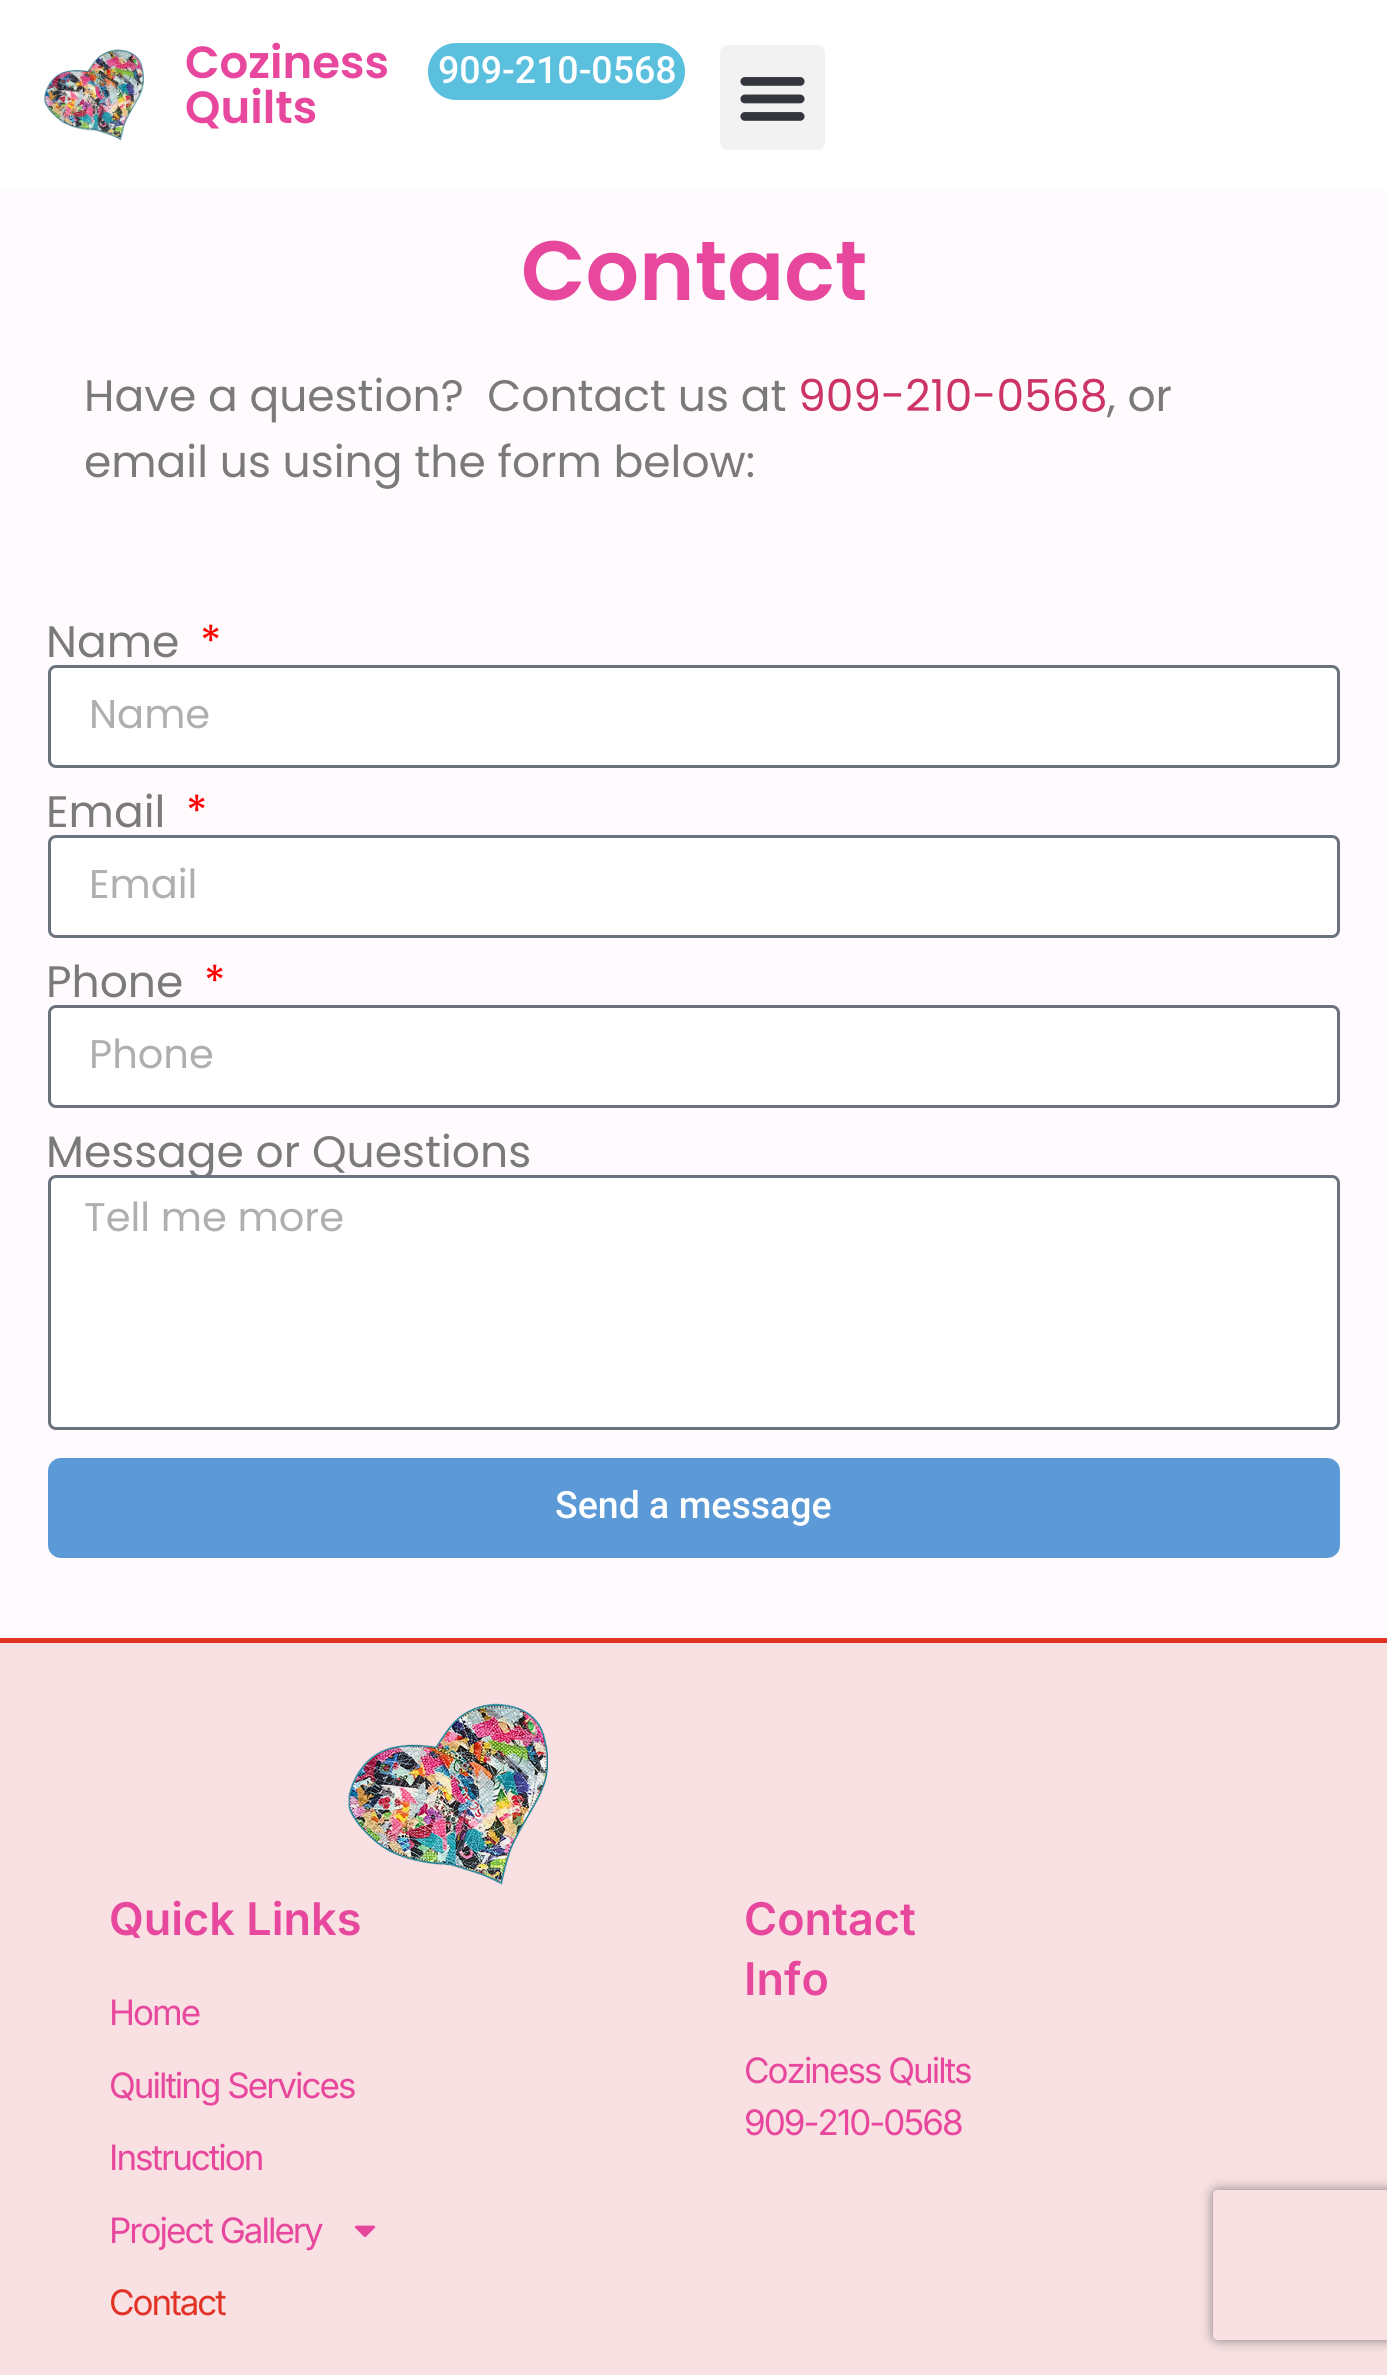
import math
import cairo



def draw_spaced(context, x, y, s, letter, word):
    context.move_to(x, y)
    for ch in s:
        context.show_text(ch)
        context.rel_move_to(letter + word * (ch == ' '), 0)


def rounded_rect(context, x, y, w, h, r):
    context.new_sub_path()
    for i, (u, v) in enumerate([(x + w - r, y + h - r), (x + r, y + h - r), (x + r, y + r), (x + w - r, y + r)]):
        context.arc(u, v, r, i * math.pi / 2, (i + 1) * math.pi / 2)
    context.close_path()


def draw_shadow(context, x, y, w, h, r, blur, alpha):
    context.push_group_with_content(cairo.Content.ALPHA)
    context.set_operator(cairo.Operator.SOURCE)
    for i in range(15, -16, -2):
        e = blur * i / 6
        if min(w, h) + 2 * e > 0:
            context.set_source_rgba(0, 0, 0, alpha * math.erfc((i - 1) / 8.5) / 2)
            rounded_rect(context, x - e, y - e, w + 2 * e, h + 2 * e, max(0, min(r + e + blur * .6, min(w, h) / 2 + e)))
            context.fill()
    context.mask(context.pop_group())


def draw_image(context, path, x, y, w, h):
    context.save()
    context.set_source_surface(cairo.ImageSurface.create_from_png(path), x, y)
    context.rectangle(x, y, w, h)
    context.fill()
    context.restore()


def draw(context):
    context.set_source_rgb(1, 1, 1)
    context.paint()
    draw_image(context, "images/1.png", 44, 49, 100, 92)
    context.set_source_rgb(91 / 255, 192 / 255, 222 / 255)
    rounded_rect(context, 428, 43, 257, 57, 28)
    context.fill()
    context.set_source_rgb(242 / 255, 242 / 255, 242 / 255)
    rounded_rect(context, 720, 45, 105, 105, 8)
    context.fill()
    draw_image(context, "images/2.png", 740, 77, 65, 44)
    context.set_source_rgb(1, 250 / 255, 253 / 255)
    context.rectangle(0, 190, 1387, 1448)
    context.fill()
    context.set_source_rgb(1, 1, 1)
    rounded_rect(context, 49.5, 666.5, 1289, 100, 6.5)
    context.fill_preserve()
    context.set_source_rgb(105 / 255, 114 / 255, 125 / 255)
    context.set_line_width(3)
    context.stroke()
    context.set_source_rgb(1, 1, 1)
    rounded_rect(context, 49.5, 836.5, 1289, 100, 6.5)
    context.fill_preserve()
    context.set_source_rgb(105 / 255, 114 / 255, 125 / 255)
    context.stroke()
    context.set_source_rgb(1, 1, 1)
    rounded_rect(context, 49.5, 1006.5, 1289, 100, 6.5)
    context.fill_preserve()
    context.set_source_rgb(105 / 255, 114 / 255, 125 / 255)
    context.stroke()
    context.set_source_rgb(91 / 255, 154 / 255, 215 / 255)
    rounded_rect(context, 48, 1458, 1292, 100, 13)
    context.fill()
    context.set_source_rgb(249 / 255, 224 / 255, 226 / 255)
    context.rectangle(0, 1643, 1387, 732)
    context.fill()
    context.save()
    context.set_fill_rule(cairo.FillRule.EVEN_ODD)
    context.new_path()
    context.move_to(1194, 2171)
    context.line_to(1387, 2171)
    context.line_to(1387, 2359)
    context.line_to(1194, 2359)
    context.close_path()
    context.move_to(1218, 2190)
    context.line_to(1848, 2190)
    context.curve_to(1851, 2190, 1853, 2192, 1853, 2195)
    context.line_to(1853, 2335)
    context.curve_to(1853, 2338, 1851, 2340, 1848, 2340)
    context.line_to(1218, 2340)
    context.curve_to(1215, 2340, 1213, 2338, 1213, 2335)
    context.line_to(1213, 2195)
    context.curve_to(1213, 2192, 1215, 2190, 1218, 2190)
    context.close_path()
    context.clip()
    context.set_source_rgb(128 / 255, 128 / 255, 128 / 255)
    draw_shadow(context, 1213, 2190, 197, 150, 5, 6, 1)
    context.restore()
    context.set_source_rgb(226 / 255, 49 / 255, 37 / 255)
    context.rectangle(0, 1638, 1387, 5)
    context.fill()
    draw_image(context, "images/3.png", 348, 1703, 200, 182)
    draw_image(context, "images/4.png", 354, 2225, 22, 13)
    context.select_font_face("Poppins SemiBold")
    context.set_font_size(45)
    context.set_source_rgb(231 / 255, 71 / 255, 157 / 255)
    context.move_to(185, 78)
    context.show_text("Coziness")
    context.move_to(185, 123)
    context.show_text("Quilts")
    context.select_font_face("Roboto Medium")
    context.set_font_size(37.5)
    context.set_source_rgb(1, 1, 1)
    context.move_to(438, 83)
    context.show_text("909-210-0568")
    context.select_font_face("Poppins SemiBold")
    context.set_font_size(84)
    context.set_source_rgb(231 / 255, 71 / 255, 157 / 255)
    context.move_to(521, 300)
    context.show_text("Contact")
    context.select_font_face("Poppins")
    context.set_font_size(44)
    context.set_source_rgb(122 / 255, 122 / 255, 122 / 255)
    context.move_to(84, 411)
    context.show_text("Have a question?  Contact us at")
    context.set_source_rgb(204 / 255, 51 / 255, 102 / 255)
    context.move_to(798, 411)
    context.show_text("909-210-0568")
    context.set_source_rgb(122 / 255, 122 / 255, 122 / 255)
    context.move_to(1107, 411)
    context.show_text(", or")
    context.move_to(84, 477)
    context.show_text("email us using the form below:")
    context.move_to(46, 657)
    context.show_text("Name")
    context.set_source_rgb(1, 0, 0)
    context.move_to(200, 657)
    context.show_text("*")
    context.set_font_size(40)
    context.set_source_rgb(175 / 255, 175 / 255, 175 / 255)
    context.move_to(89, 728)
    context.show_text("Name")
    context.set_font_size(44)
    context.set_source_rgb(122 / 255, 122 / 255, 122 / 255)
    context.move_to(46, 827)
    context.show_text("Email")
    context.set_source_rgb(1, 0, 0)
    context.move_to(186, 827)
    context.show_text("*")
    context.set_font_size(40)
    context.set_source_rgb(175 / 255, 175 / 255, 175 / 255)
    context.move_to(89, 898)
    context.show_text("Email")
    context.set_font_size(44)
    context.set_source_rgb(122 / 255, 122 / 255, 122 / 255)
    context.move_to(46, 997)
    context.show_text("Phone")
    context.set_source_rgb(1, 0, 0)
    context.move_to(204, 997)
    context.show_text("*")
    context.set_font_size(40)
    context.set_source_rgb(175 / 255, 175 / 255, 175 / 255)
    context.move_to(89, 1068)
    context.show_text("Phone")
    context.set_font_size(44)
    context.set_source_rgb(122 / 255, 122 / 255, 122 / 255)
    context.move_to(46, 1167)
    context.show_text("Message or Questions")
    context.set_source_rgb(1, 1, 1)
    rounded_rect(context, 49.5, 1176.5, 1289, 252, 6.5)
    context.fill_preserve()
    context.set_source_rgb(105 / 255, 114 / 255, 125 / 255)
    context.stroke()
    context.set_font_size(40)
    context.set_source_rgb(175 / 255, 175 / 255, 175 / 255)
    context.move_to(84, 1231)
    context.show_text("Tell me more")
    context.select_font_face("Roboto Medium")
    context.set_font_size(37.5)
    context.set_source_rgb(1, 1, 1)
    context.move_to(555, 1518)
    context.show_text("Send a message")
    context.select_font_face("Inter SemiBold")
    context.set_font_size(45)
    context.set_source_rgb(231 / 255, 71 / 255, 157 / 255)
    context.move_to(109, 1935)
    context.show_text("Quick Links")
    context.select_font_face("Inter")
    context.set_font_size(35)
    draw_spaced(context, 109, 2025, "Home", -2, 0)
    draw_spaced(context, 109, 2098, "Quilting Services", -2, 0)
    draw_spaced(context, 109, 2170, "Instruction", -2, 0)
    draw_spaced(context, 109, 2243, "Project Gallery", -2, 0)
    context.set_source_rgb(226 / 255, 49 / 255, 37 / 255)
    draw_spaced(context, 109, 2315, "Contact", -2, 0)
    context.select_font_face("Inter SemiBold")
    context.set_font_size(45)
    context.set_source_rgb(231 / 255, 71 / 255, 157 / 255)
    context.move_to(744, 1935)
    context.show_text("Contact")
    context.move_to(744, 1995)
    context.show_text("Info")
    context.select_font_face("Inter")
    context.set_font_size(35)
    draw_spaced(context, 744, 2083, "Coziness Quilts", -2, 0)
    draw_spaced(context, 744, 2135, "909-210-0568", -2, 0)


surface = cairo.ImageSurface(cairo.Format.RGB24, 1387, 2375)
context = cairo.Context(surface)
options = cairo.FontOptions()
options.set_hint_metrics(cairo.HintMetrics.OFF)
options.set_hint_style(cairo.HintStyle.NONE)
context.set_font_options(options)
context.set_miter_limit(4)
draw(context)
surface.write_to_png("out.png")
